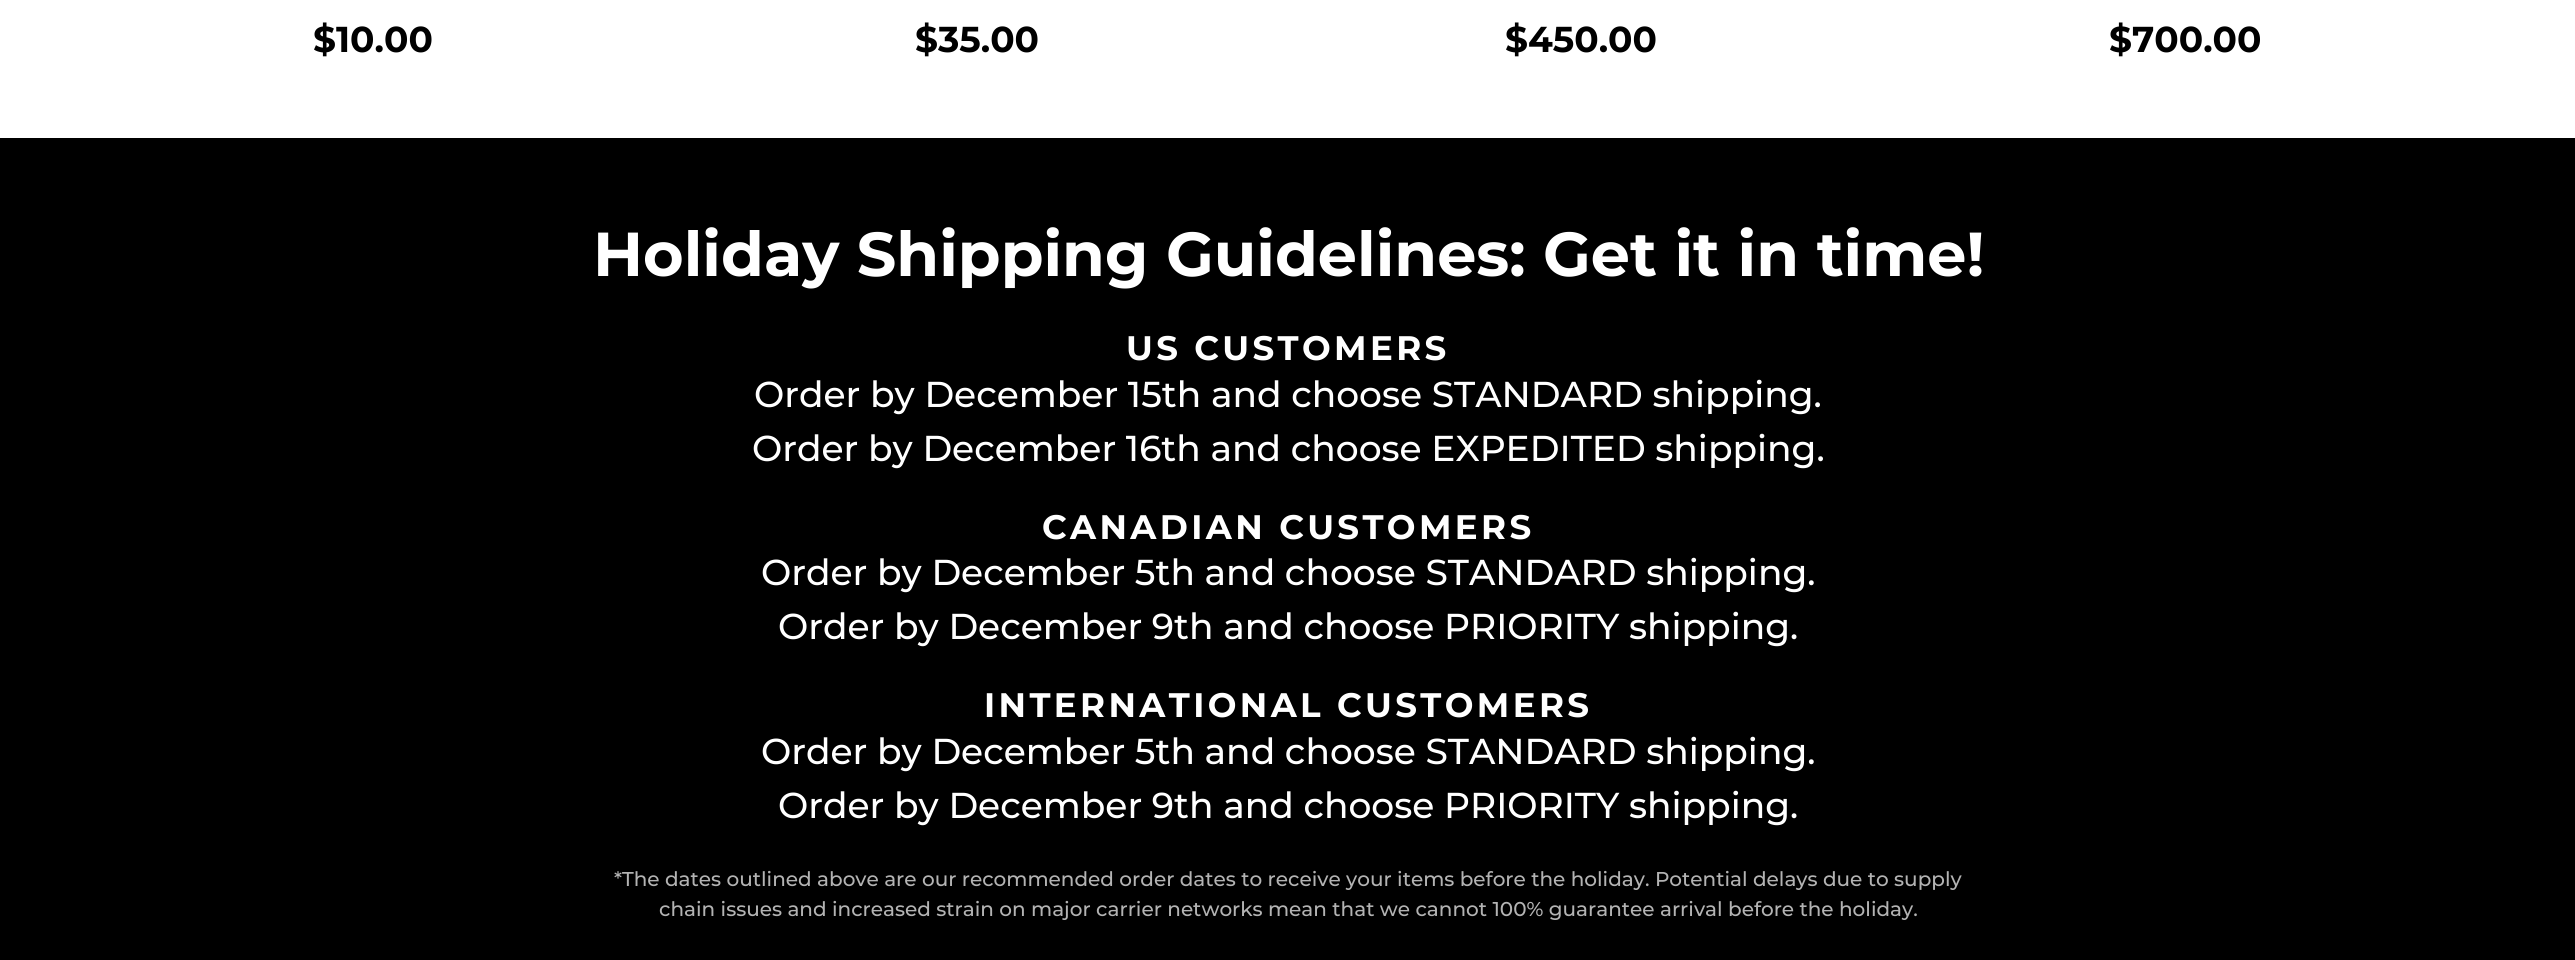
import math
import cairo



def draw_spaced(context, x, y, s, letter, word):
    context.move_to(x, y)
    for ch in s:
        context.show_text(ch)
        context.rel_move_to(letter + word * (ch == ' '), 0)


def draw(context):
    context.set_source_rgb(1, 1, 1)
    context.paint()
    context.set_source_rgb(0, 0, 0)
    context.rectangle(0, 138, 2575, 822)
    context.fill()
    context.select_font_face("Montserrat", cairo.FontSlant.NORMAL, cairo.FontWeight.BOLD)
    context.set_font_size(36)
    context.move_to(313, 52)
    context.show_text("$10.00")
    context.move_to(915, 52)
    context.show_text("$35.00")
    context.move_to(1505, 52)
    context.show_text("$450.00")
    context.move_to(2109, 52)
    context.show_text("$700.00")
    context.set_font_size(62)
    context.set_source_rgb(1, 1, 1)
    context.move_to(593, 276)
    context.show_text("Holiday Shipping Guidelines: Get it in time!")
    context.set_font_size(34)
    draw_spaced(context, 1126, 360, "US CUSTOMERS", 3.4, 0)
    context.select_font_face("Montserrat Medium")
    context.set_font_size(36)
    context.move_to(754, 407)
    context.show_text("Order by December 15th and choose STANDARD shipping.")
    context.move_to(752, 461)
    context.show_text("Order by December 16th and choose EXPEDITED shipping.")
    context.select_font_face("Montserrat", cairo.FontSlant.NORMAL, cairo.FontWeight.BOLD)
    context.set_font_size(34)
    draw_spaced(context, 1042, 539, "CANADIAN CUSTOMERS", 3.4, 0)
    context.select_font_face("Montserrat Medium")
    context.set_font_size(36)
    context.move_to(761, 585)
    context.show_text("Order by December 5th and choose STANDARD shipping.")
    context.move_to(778, 639)
    context.show_text("Order by December 9th and choose PRIORITY shipping.")
    context.select_font_face("Montserrat", cairo.FontSlant.NORMAL, cairo.FontWeight.BOLD)
    context.set_font_size(34)
    draw_spaced(context, 984, 717, "INTERNATIONAL CUSTOMERS", 3.4, 0)
    context.select_font_face("Montserrat Medium")
    context.set_font_size(36)
    context.move_to(761, 764)
    context.show_text("Order by December 5th and choose STANDARD shipping.")
    context.move_to(778, 818)
    context.show_text("Order by December 9th and choose PRIORITY shipping.")
    context.set_font_size(20)
    context.set_source_rgb(179 / 255, 179 / 255, 179 / 255)
    context.move_to(614, 886)
    context.show_text("*The dates outlined above are our recommended order dates to receive your items before the holiday. Potential delays due to supply")
    context.move_to(659, 916)
    context.show_text("chain issues and increased strain on major carrier networks mean that we cannot 100% guarantee arrival before the holiday.")


surface = cairo.ImageSurface(cairo.Format.RGB24, 2575, 960)
context = cairo.Context(surface)
options = cairo.FontOptions()
options.set_hint_metrics(cairo.HintMetrics.OFF)
options.set_hint_style(cairo.HintStyle.NONE)
context.set_font_options(options)
context.set_miter_limit(4)
draw(context)
surface.write_to_png("out.png")
